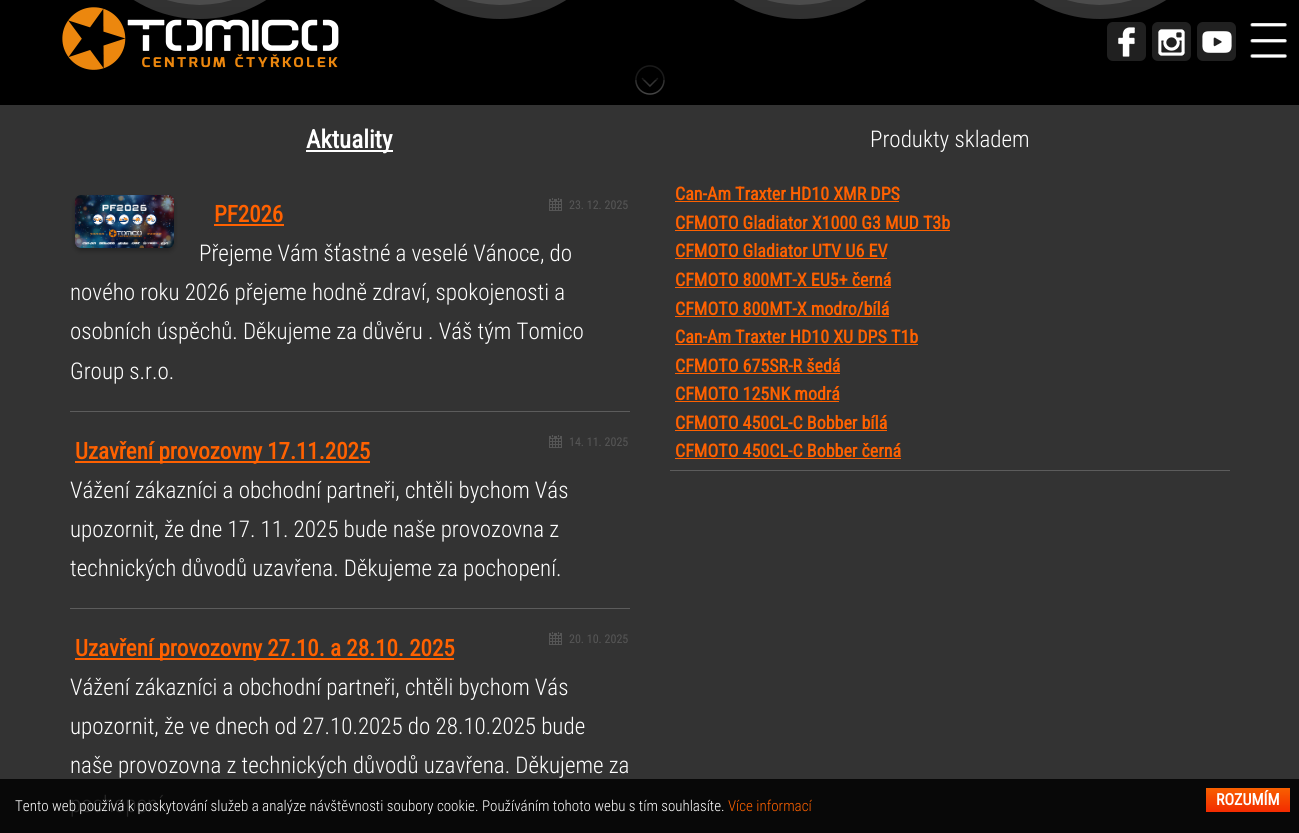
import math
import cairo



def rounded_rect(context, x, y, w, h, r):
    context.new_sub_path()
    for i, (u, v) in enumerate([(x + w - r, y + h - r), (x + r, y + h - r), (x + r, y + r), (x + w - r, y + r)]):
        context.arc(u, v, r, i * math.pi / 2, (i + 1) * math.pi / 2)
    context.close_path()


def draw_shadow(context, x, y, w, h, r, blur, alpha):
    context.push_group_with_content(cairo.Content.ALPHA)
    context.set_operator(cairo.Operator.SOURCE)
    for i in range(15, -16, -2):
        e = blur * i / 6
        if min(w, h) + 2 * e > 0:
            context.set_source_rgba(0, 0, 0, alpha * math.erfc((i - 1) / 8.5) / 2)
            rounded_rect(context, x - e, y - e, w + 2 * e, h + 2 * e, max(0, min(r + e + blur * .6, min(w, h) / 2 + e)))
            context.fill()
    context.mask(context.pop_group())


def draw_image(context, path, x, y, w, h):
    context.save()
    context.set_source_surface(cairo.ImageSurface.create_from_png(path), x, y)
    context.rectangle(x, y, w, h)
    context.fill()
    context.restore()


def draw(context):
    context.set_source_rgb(1, 1, 1)
    context.paint()
    draw_image(context, "images/1.png", 0, 0, 1299, 105)
    gradient = cairo.LinearGradient(200, -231, 200, 19)
    gradient.add_color_stop_rgba(0, 1, 1, 1, 1)
    gradient.add_color_stop_rgba(1, 162 / 255, 162 / 255, 162 / 255, 1)
    context.set_source(gradient)
    rounded_rect(context, 75, -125, 250, 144, 125)
    context.fill()
    draw_image(context, "images/6.png", 167, 0, 65, 5)
    gradient = cairo.LinearGradient(500, -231, 500, 19)
    gradient.add_color_stop_rgba(0, 1, 1, 1, 1)
    gradient.add_color_stop_rgba(1, 162 / 255, 162 / 255, 162 / 255, 1)
    context.set_source(gradient)
    rounded_rect(context, 375, -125, 250, 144, 125)
    context.fill()
    draw_image(context, "images/7.png", 467, 0, 65, 5)
    gradient = cairo.LinearGradient(800, -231, 800, 19)
    gradient.add_color_stop_rgba(0, 1, 1, 1, 1)
    gradient.add_color_stop_rgba(1, 162 / 255, 162 / 255, 162 / 255, 1)
    context.set_source(gradient)
    rounded_rect(context, 675, -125, 250, 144, 125)
    context.fill()
    draw_image(context, "images/8.png", 767, 0, 65, 5)
    gradient = cairo.LinearGradient(1100, -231, 1100, 19)
    gradient.add_color_stop_rgba(0, 1, 1, 1, 1)
    gradient.add_color_stop_rgba(1, 162 / 255, 162 / 255, 162 / 255, 1)
    context.set_source(gradient)
    rounded_rect(context, 975, -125, 250, 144, 125)
    context.fill()
    draw_image(context, "images/6.png", 1067, 0, 65, 5)
    draw_image(context, "images/9.png", 635, 65, 30, 30)
    context.set_source_rgba(0, 0, 0, 0.7)
    context.rectangle(134, 0, 1032, 80)
    context.fill()
    context.set_source_rgb(32 / 255, 32 / 255, 32 / 255)
    rounded_rect(context, 1107, 22, 39, 39, 6)
    context.fill()
    rounded_rect(context, 1152, 22, 39, 39, 6)
    context.fill()
    rounded_rect(context, 1197, 22, 39, 39, 6)
    context.fill()
    draw_image(context, "images/2.png", 1118, 27, 17, 30)
    draw_image(context, "images/3.png", 1158, 29, 27, 27)
    draw_image(context, "images/4.png", 1202, 31, 30, 22)
    draw_image(context, "images/5.png", 1250, 23, 37, 35)
    draw_image(context, "images/10.png", 635, 80, 30, 15)
    draw_image(context, "images/11.png", 62, 7, 277, 63)
    context.set_source_rgb(51 / 255, 51 / 255, 51 / 255)
    context.rectangle(0, 105, 1299, 674)
    context.fill()
    context.set_source_rgb(8 / 255, 8 / 255, 8 / 255)
    context.rectangle(0, 779, 1299, 54)
    context.fill()
    context.set_source_rgb(1, 1, 1)
    context.rectangle(306, 150, 87, 2)
    context.fill()
    context.set_source_rgb(92 / 255, 92 / 255, 92 / 255)
    context.rectangle(70, 411, 560, 1)
    context.fill()
    context.set_source_rgb(0, 0, 0)
    draw_shadow(context, 75, 198, 99, 53, 6, 2.5, 0.3)
    draw_image(context, "images/12.png", 75, 195, 99, 53)
    context.set_source_rgb(1, 97 / 255, 0)
    context.rectangle(214, 224, 70, 2)
    context.fill()
    draw_image(context, "images/13.png", 549, 198, 13, 13)
    context.set_source_rgb(92 / 255, 92 / 255, 92 / 255)
    context.rectangle(70, 608, 560, 1)
    context.fill()
    context.set_source_rgb(1, 97 / 255, 0)
    context.rectangle(75, 461, 295, 2)
    context.fill()
    draw_image(context, "images/13.png", 549, 435, 13, 13)
    context.rectangle(75, 658, 379, 2)
    context.fill()
    draw_image(context, "images/13.png", 549, 632, 13, 13)
    context.set_source_rgb(92 / 255, 92 / 255, 92 / 255)
    context.rectangle(670, 470, 560, 1)
    context.fill()
    context.set_source_rgb(1, 97 / 255, 0)
    context.rectangle(675, 201, 224, 1)
    context.fill()
    context.rectangle(675, 230, 275, 1)
    context.fill()
    context.rectangle(675, 258, 212, 1)
    context.fill()
    context.rectangle(675, 287, 216, 1)
    context.fill()
    context.rectangle(675, 316, 214, 1)
    context.fill()
    context.rectangle(675, 344, 243, 1)
    context.fill()
    context.rectangle(675, 373, 165, 1)
    context.fill()
    context.rectangle(675, 401, 164, 1)
    context.fill()
    context.rectangle(675, 430, 212, 1)
    context.fill()
    context.rectangle(675, 458, 226, 1)
    context.fill()
    gradient = cairo.LinearGradient(1248, 788, 1248, 812)
    gradient.add_color_stop_rgba(0, 248 / 255, 96 / 255, 0, 1)
    gradient.add_color_stop_rgba(1, 243 / 255, 43 / 255, 0, 1)
    context.set_source(gradient)
    context.rectangle(1206, 788, 84, 24)
    context.fill()
    context.select_font_face("Roboto Condensed", cairo.FontSlant.NORMAL, cairo.FontWeight.BOLD)
    context.set_font_size(25)
    context.set_source_rgb(1, 1, 1)
    context.move_to(306, 148)
    context.show_text("Aktuality")
    context.set_font_size(23)
    context.set_source_rgb(1, 97 / 255, 0)
    context.move_to(214, 222)
    context.show_text("PF2026")
    context.select_font_face("Roboto Condensed")
    context.set_font_size(12)
    context.set_source_rgb(86 / 255, 86 / 255, 86 / 255)
    context.move_to(569, 209)
    context.show_text("23. 12. 2025")
    context.select_font_face("Roboto Condensed Light")
    context.set_font_size(23)
    context.set_source_rgb(1, 1, 1)
    context.move_to(199, 261)
    context.show_text("Přejeme Vám šťastné a veselé Vánoce, do")
    context.move_to(70, 300)
    context.show_text("nového roku 2026 přejeme hodně zdraví, spokojenosti a")
    context.move_to(70, 339)
    context.show_text("osobních úspěchů. Děkujeme za důvěru . Váš tým Tomico")
    context.move_to(70, 379)
    context.show_text("Group s.r.o.")
    context.select_font_face("Roboto Condensed", cairo.FontSlant.NORMAL, cairo.FontWeight.BOLD)
    context.set_source_rgb(1, 97 / 255, 0)
    context.move_to(75, 459)
    context.show_text("Uzavření provozovny 17.11.2025")
    context.select_font_face("Roboto Condensed")
    context.set_font_size(12)
    context.set_source_rgb(86 / 255, 86 / 255, 86 / 255)
    context.move_to(569, 446)
    context.show_text("14. 11. 2025")
    context.select_font_face("Roboto Condensed Light")
    context.set_font_size(23)
    context.set_source_rgb(1, 1, 1)
    context.move_to(70, 498)
    context.show_text("Vážení zákazníci a obchodní partneři, chtěli bychom Vás")
    context.move_to(70, 537)
    context.show_text("upozornit, že dne 17. 11. 2025 bude naše provozovna z")
    context.move_to(70, 576)
    context.show_text("technických důvodů uzavřena. Děkujeme za pochopení.")
    context.select_font_face("Roboto Condensed", cairo.FontSlant.NORMAL, cairo.FontWeight.BOLD)
    context.set_source_rgb(1, 97 / 255, 0)
    context.move_to(75, 656)
    context.show_text("Uzavření provozovny 27.10. a 28.10. 2025")
    context.select_font_face("Roboto Condensed")
    context.set_font_size(12)
    context.set_source_rgb(86 / 255, 86 / 255, 86 / 255)
    context.move_to(569, 643)
    context.show_text("20. 10. 2025")
    context.select_font_face("Roboto Condensed Light")
    context.set_font_size(23)
    context.set_source_rgb(1, 1, 1)
    context.move_to(70, 695)
    context.show_text("Vážení zákazníci a obchodní partneři, chtěli bychom Vás")
    context.move_to(70, 734)
    context.show_text("upozornit, že ve dnech od 27.10.2025 do 28.10.2025 bude")
    context.move_to(70, 773)
    context.show_text("naše provozovna z technických důvodů uzavřena. Děkujeme za")
    context.set_source_rgb(38 / 255, 38 / 255, 38 / 255)
    context.move_to(70, 812)
    context.show_text("pochopení.")
    context.set_source_rgb(1, 1, 1)
    context.move_to(870, 147)
    context.show_text("Produkty skladem")
    context.select_font_face("Roboto Condensed", cairo.FontSlant.NORMAL, cairo.FontWeight.BOLD)
    context.set_font_size(18)
    context.set_source_rgb(1, 97 / 255, 0)
    context.move_to(675, 200)
    context.show_text("Can-Am Traxter HD10 XMR DPS")
    context.move_to(675, 229)
    context.show_text("CFMOTO Gladiator X1000 G3 MUD T3b")
    context.move_to(675, 257)
    context.show_text("CFMOTO Gladiator UTV U6 EV")
    context.move_to(675, 286)
    context.show_text("CFMOTO 800MT-X EU5+ černá")
    context.move_to(675, 315)
    context.show_text("CFMOTO 800MT-X modro/bílá")
    context.move_to(675, 343)
    context.show_text("Can-Am Traxter HD10 XU DPS T1b")
    context.move_to(675, 372)
    context.show_text("CFMOTO 675SR-R šedá")
    context.move_to(675, 400)
    context.show_text("CFMOTO 125NK modrá")
    context.move_to(675, 429)
    context.show_text("CFMOTO 450CL-C Bobber bílá")
    context.move_to(675, 457)
    context.show_text("CFMOTO 450CL-C Bobber černá")
    context.select_font_face("Roboto Condensed Light")
    context.set_font_size(15)
    context.set_source_rgb(1, 1, 1)
    context.move_to(15, 811)
    context.show_text("Tento web používá k poskytování služeb a analýze návštěvnosti soubory cookie. Používáním tohoto webu s tím souhlasíte.")
    context.set_source_rgb(1, 97 / 255, 0)
    context.move_to(728, 811)
    context.show_text("Více informací")
    context.select_font_face("Roboto Condensed", cairo.FontSlant.NORMAL, cairo.FontWeight.BOLD)
    context.set_font_size(16)
    context.set_source_rgb(1, 1, 1)
    context.move_to(1216, 805)
    context.show_text("ROZUMÍM")


surface = cairo.ImageSurface(cairo.Format.RGB24, 1299, 833)
context = cairo.Context(surface)
options = cairo.FontOptions()
options.set_hint_metrics(cairo.HintMetrics.OFF)
options.set_hint_style(cairo.HintStyle.NONE)
context.set_font_options(options)
context.set_miter_limit(4)
draw(context)
surface.write_to_png("out.png")
